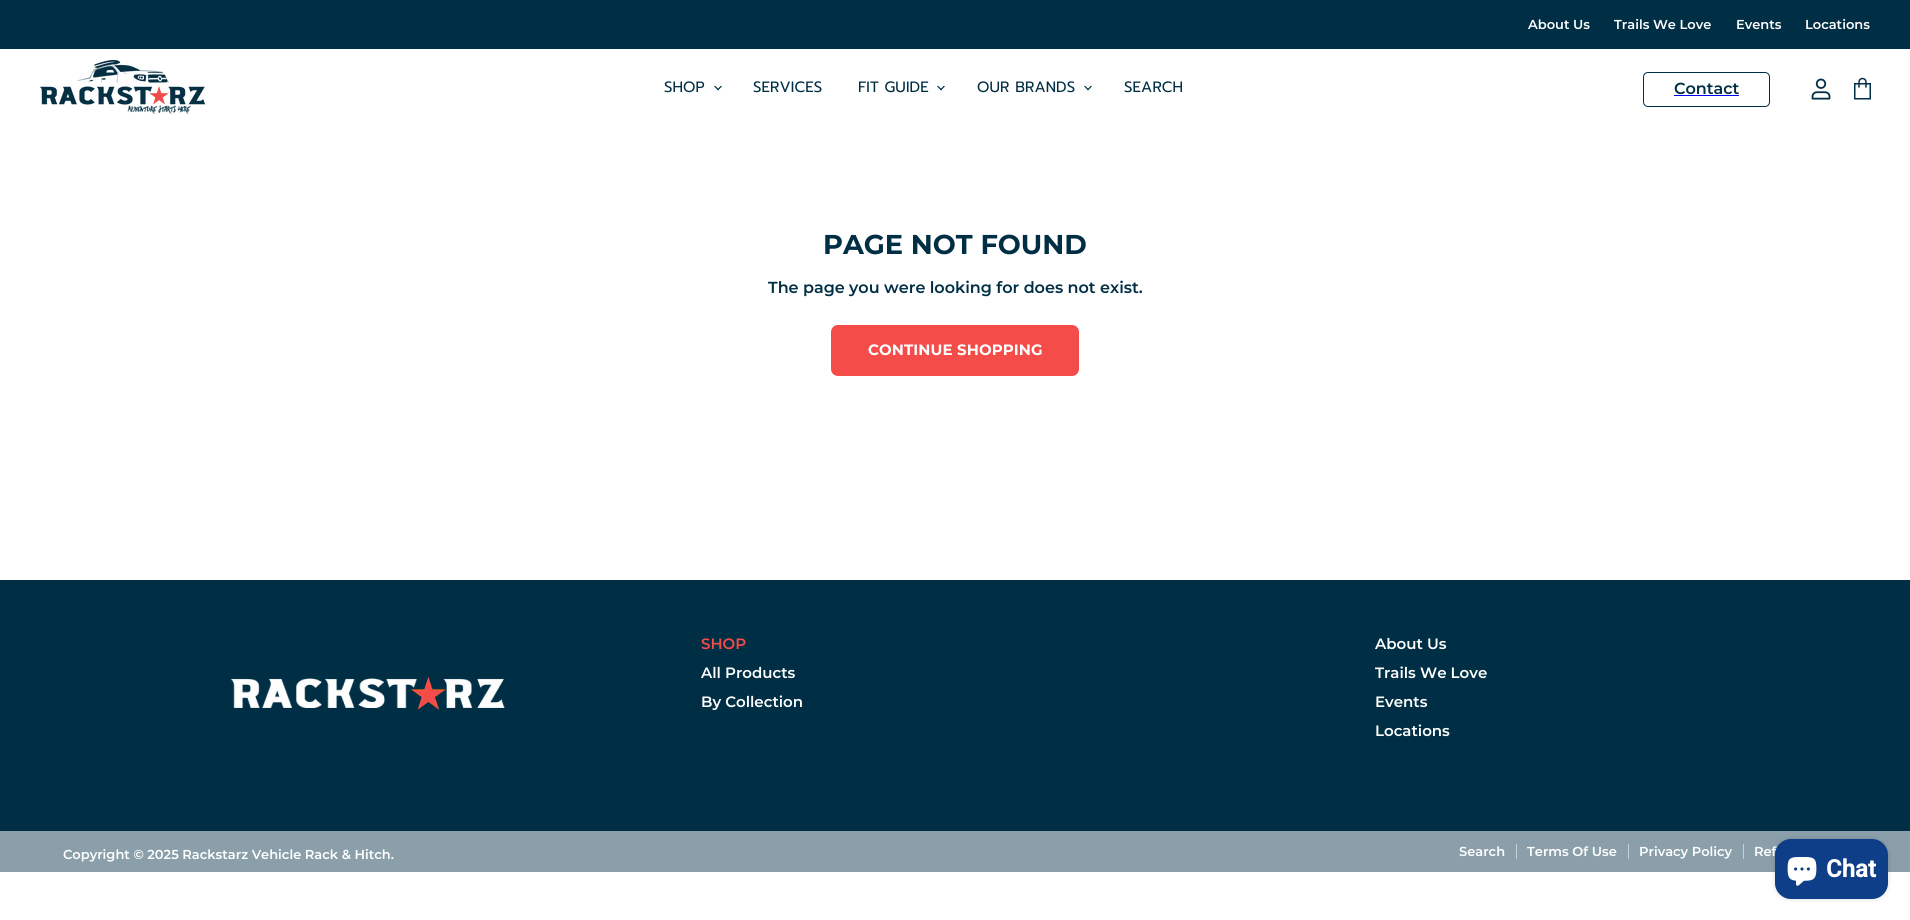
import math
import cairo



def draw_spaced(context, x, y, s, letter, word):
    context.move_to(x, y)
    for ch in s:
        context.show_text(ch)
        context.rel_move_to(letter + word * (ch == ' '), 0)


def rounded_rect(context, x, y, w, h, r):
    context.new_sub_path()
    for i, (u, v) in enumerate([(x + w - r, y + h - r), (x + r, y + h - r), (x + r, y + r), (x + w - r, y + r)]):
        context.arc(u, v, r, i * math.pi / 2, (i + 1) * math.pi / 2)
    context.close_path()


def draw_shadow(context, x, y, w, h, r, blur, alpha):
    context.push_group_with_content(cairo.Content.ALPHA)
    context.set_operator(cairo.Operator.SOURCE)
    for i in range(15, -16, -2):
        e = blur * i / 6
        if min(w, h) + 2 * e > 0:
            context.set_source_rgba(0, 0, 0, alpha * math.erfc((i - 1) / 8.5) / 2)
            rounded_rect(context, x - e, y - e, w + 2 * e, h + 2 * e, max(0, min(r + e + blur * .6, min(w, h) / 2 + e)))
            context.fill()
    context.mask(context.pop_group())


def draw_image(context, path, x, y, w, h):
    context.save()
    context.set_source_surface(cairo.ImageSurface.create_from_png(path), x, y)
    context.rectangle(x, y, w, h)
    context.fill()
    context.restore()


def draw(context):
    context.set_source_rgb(1, 1, 1)
    context.paint()
    context.set_source_rgb(0, 46 / 255, 68 / 255)
    context.rectangle(0, 0, 1910, 49)
    context.fill()
    draw_image(context, "images/1.png", 40, 60, 165, 54)
    draw_image(context, "images/2.png", 714, 85, 8, 6)
    draw_image(context, "images/2.png", 937, 85, 8, 6)
    draw_image(context, "images/2.png", 1084, 85, 8, 6)
    rounded_rect(context, 1643.5, 72.5, 126, 34, 4.5)
    context.set_source_rgb(0, 46 / 255, 69 / 255)
    context.set_line_width(1)
    context.stroke()
    context.set_source_rgb(0, 0, 238 / 255)
    context.rectangle(1674, 95, 65, 1)
    context.fill()
    draw_image(context, "images/3.png", 1811, 78, 20, 22)
    draw_image(context, "images/4.png", 1854, 77, 17, 23)
    context.set_source_rgb(243 / 255, 76 / 255, 73 / 255)
    rounded_rect(context, 832.5, 326.5, 245, 48, 5.5)
    context.fill_preserve()
    context.set_line_width(3)
    context.stroke()
    context.set_source_rgb(0, 46 / 255, 68 / 255)
    context.rectangle(0, 580, 1910, 251)
    context.fill()
    draw_image(context, "images/5.png", 231, 676, 274, 34)
    context.set_source_rgb(138 / 255, 159 / 255, 169 / 255)
    context.rectangle(0, 831, 1910, 41)
    context.fill()
    context.set_source_rgb(197 / 255, 207 / 255, 212 / 255)
    context.rectangle(1516, 844, 1, 15)
    context.fill()
    context.rectangle(1628, 844, 1, 15)
    context.fill()
    context.rectangle(1743, 844, 1, 15)
    context.fill()
    context.set_source_rgb(0, 0, 0)
    draw_shadow(context, 1775, 839, 113, 60, 16, 2.5, 0.15)
    context.select_font_face("Montserrat SemiBold")
    context.set_font_size(13)
    context.set_source_rgb(1, 1, 1)
    context.move_to(1528, 29)
    context.show_text("About Us")
    context.move_to(1614, 29)
    context.show_text("Trails We Love")
    context.move_to(1736, 29)
    context.show_text("Events")
    context.move_to(1805, 29)
    context.show_text("Locations")
    context.select_font_face("Prompt")
    context.set_font_size(15)
    context.set_source_rgb(0, 46 / 255, 68 / 255)
    draw_spaced(context, 664, 92, "SHOP", 0.1, 0)
    draw_spaced(context, 753, 92, "SERVICES", 0.1, 0)
    draw_spaced(context, 858, 92, "FIT GUIDE", 0.1, 0)
    draw_spaced(context, 977, 92, "OUR BRANDS", 0.1, 0)
    draw_spaced(context, 1124, 92, "SEARCH", 0.1, 0)
    context.select_font_face("Montserrat SemiBold")
    context.set_font_size(16)
    context.move_to(1674, 94)
    context.show_text("Contact")
    context.select_font_face("Montserrat", cairo.FontSlant.NORMAL, cairo.FontWeight.BOLD)
    context.set_font_size(27.25)
    context.move_to(823, 254)
    context.show_text("PAGE NOT FOUND")
    context.select_font_face("Montserrat SemiBold")
    context.set_font_size(16)
    context.move_to(768, 293)
    context.show_text("The page you were looking for does not exist.")
    context.select_font_face("Montserrat", cairo.FontSlant.NORMAL, cairo.FontWeight.BOLD)
    context.set_font_size(15)
    context.set_source_rgb(1, 1, 1)
    draw_spaced(context, 868, 355, "CONTINUE SHOPPING", 0.1, 0)
    context.select_font_face("Montserrat SemiBold")
    context.set_source_rgb(243 / 255, 76 / 255, 73 / 255)
    context.move_to(701, 649)
    context.show_text("SHOP")
    context.set_source_rgb(1, 1, 1)
    context.move_to(701, 678)
    context.show_text("All Products")
    context.move_to(701, 707)
    context.show_text("By Collection")
    context.move_to(1375, 649)
    context.show_text("About Us")
    context.move_to(1375, 678)
    context.show_text("Trails We Love")
    context.move_to(1375, 707)
    context.show_text("Events")
    context.move_to(1375, 736)
    context.show_text("Locations")
    context.set_font_size(13)
    context.move_to(63, 859)
    context.show_text("Copyright © 2025 Rackstarz Vehicle Rack & Hitch.")
    context.move_to(1459, 856)
    context.show_text("Search")
    context.move_to(1527, 856)
    context.show_text("Terms Of Use")
    context.move_to(1639, 856)
    context.show_text("Privacy Policy")
    context.move_to(1754, 856)
    context.show_text("Ref")
    context.set_source_rgb(14 / 255, 62 / 255, 135 / 255)
    rounded_rect(context, 1775, 839, 113, 60, 16)
    context.fill()
    draw_image(context, "images/6.png", 1787, 857, 30, 29)
    context.select_font_face("Roboto", cairo.FontSlant.NORMAL, cairo.FontWeight.BOLD)
    context.set_font_size(24)
    context.set_source_rgb(1, 1, 1)
    context.move_to(1826, 877)
    context.show_text("Chat")


surface = cairo.ImageSurface(cairo.Format.RGB24, 1910, 920)
context = cairo.Context(surface)
options = cairo.FontOptions()
options.set_hint_metrics(cairo.HintMetrics.OFF)
options.set_hint_style(cairo.HintStyle.NONE)
context.set_font_options(options)
context.set_miter_limit(4)
draw(context)
surface.write_to_png("out.png")
